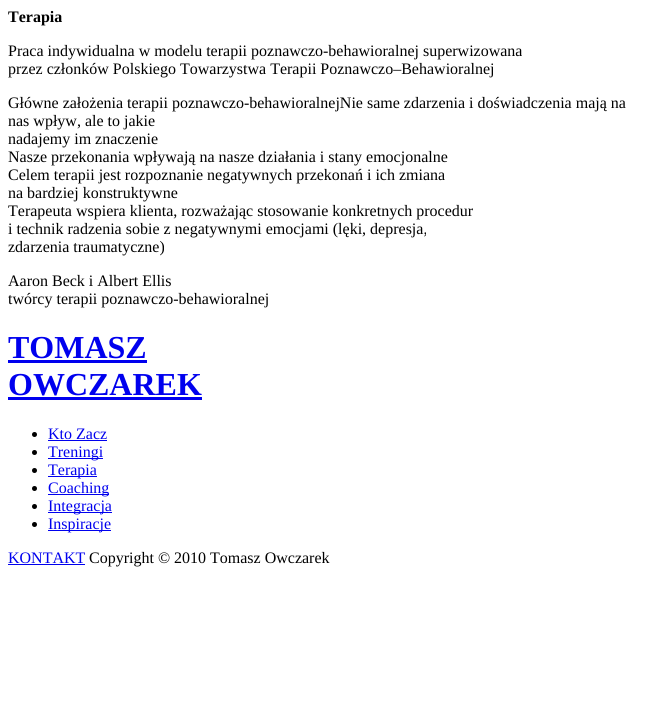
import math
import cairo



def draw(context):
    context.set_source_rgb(1, 1, 1)
    context.paint()
    context.set_source_rgb(0, 0, 238 / 255)
    context.rectangle(8, 360, 139, 3)
    context.fill()
    context.rectangle(8, 397, 194, 3)
    context.fill()
    context.set_source_rgb(0, 0, 0)
    context.arc(34.5, 434.5, 2.5, 0, 2 * math.pi)
    context.fill()
    context.set_source_rgb(0, 0, 238 / 255)
    context.rectangle(48, 440, 59, 1)
    context.fill()
    context.set_source_rgb(0, 0, 0)
    context.arc(34.5, 452.5, 2.5, 0, 2 * math.pi)
    context.fill()
    context.set_source_rgb(0, 0, 238 / 255)
    context.rectangle(48, 458, 55, 1)
    context.fill()
    context.set_source_rgb(0, 0, 0)
    context.arc(34.5, 470.5, 2.5, 0, 2 * math.pi)
    context.fill()
    context.set_source_rgb(0, 0, 238 / 255)
    context.rectangle(48, 476, 49, 1)
    context.fill()
    context.set_source_rgb(0, 0, 0)
    context.arc(34.5, 488.5, 2.5, 0, 2 * math.pi)
    context.fill()
    context.set_source_rgb(0, 0, 238 / 255)
    context.rectangle(48, 494, 61, 1)
    context.fill()
    context.set_source_rgb(0, 0, 0)
    context.arc(34.5, 506.5, 2.5, 0, 2 * math.pi)
    context.fill()
    context.set_source_rgb(0, 0, 238 / 255)
    context.rectangle(48, 512, 64, 1)
    context.fill()
    context.set_source_rgb(0, 0, 0)
    context.arc(34.5, 524.5, 2.5, 0, 2 * math.pi)
    context.fill()
    context.set_source_rgb(0, 0, 238 / 255)
    context.rectangle(48, 530, 63, 1)
    context.fill()
    context.rectangle(8, 564, 77, 1)
    context.fill()
    context.select_font_face("Liberation Serif", cairo.FontSlant.NORMAL, cairo.FontWeight.BOLD)
    context.set_font_size(16)
    context.set_source_rgb(0, 0, 0)
    context.move_to(8, 22)
    context.show_text("Terapia")
    context.select_font_face("Liberation Serif")
    context.move_to(8, 56)
    context.show_text("Praca indywidualna w modelu terapii poznawczo-behawioralnej superwizowana")
    context.move_to(8, 74)
    context.show_text("przez członków Polskiego Towarzystwa Terapii Poznawczo–Behawioralnej")
    context.move_to(8, 108)
    context.show_text("Główne założenia terapii poznawczo-behawioralnejNie same zdarzenia i doświadczenia mają na")
    context.move_to(8, 126)
    context.show_text("nas wpływ, ale to jakie")
    context.move_to(8, 144)
    context.show_text("nadajemy im znaczenie")
    context.move_to(8, 162)
    context.show_text("Nasze przekonania wpływają na nasze działania i stany emocjonalne")
    context.move_to(8, 180)
    context.show_text("Celem terapii jest rozpoznanie negatywnych przekonań i ich zmiana")
    context.move_to(8, 198)
    context.show_text("na bardziej konstruktywne")
    context.move_to(8, 216)
    context.show_text("Terapeuta wspiera klienta, rozważając stosowanie konkretnych procedur")
    context.move_to(8, 234)
    context.show_text("i technik radzenia sobie z negatywnymi emocjami (lęki, depresja,")
    context.move_to(8, 252)
    context.show_text("zdarzenia traumatyczne)")
    context.move_to(8, 286)
    context.show_text("Aaron Beck i Albert Ellis")
    context.move_to(8, 304)
    context.show_text("twórcy terapii poznawczo-behawioralnej")
    context.select_font_face("Liberation Serif", cairo.FontSlant.NORMAL, cairo.FontWeight.BOLD)
    context.set_font_size(32)
    context.set_source_rgb(0, 0, 238 / 255)
    context.move_to(8, 358)
    context.show_text("TOMASZ")
    context.move_to(8, 395)
    context.show_text("OWCZAREK")
    context.select_font_face("Liberation Serif")
    context.set_font_size(16)
    context.move_to(48, 439)
    context.show_text("Kto Zacz")
    context.move_to(48, 457)
    context.show_text("Treningi")
    context.move_to(48, 475)
    context.show_text("Terapia")
    context.move_to(48, 493)
    context.show_text("Coaching")
    context.move_to(48, 511)
    context.show_text("Integracja")
    context.move_to(48, 529)
    context.show_text("Inspiracje")
    context.move_to(8, 563)
    context.show_text("KONTAKT")
    context.set_source_rgb(0, 0, 0)
    context.move_to(89, 563)
    context.show_text("Copyright © 2010 Tomasz Owczarek")


surface = cairo.ImageSurface(cairo.Format.RGB24, 648, 717)
context = cairo.Context(surface)
options = cairo.FontOptions()
options.set_hint_metrics(cairo.HintMetrics.OFF)
options.set_hint_style(cairo.HintStyle.NONE)
context.set_font_options(options)
context.set_miter_limit(4)
draw(context)
surface.write_to_png("out.png")
